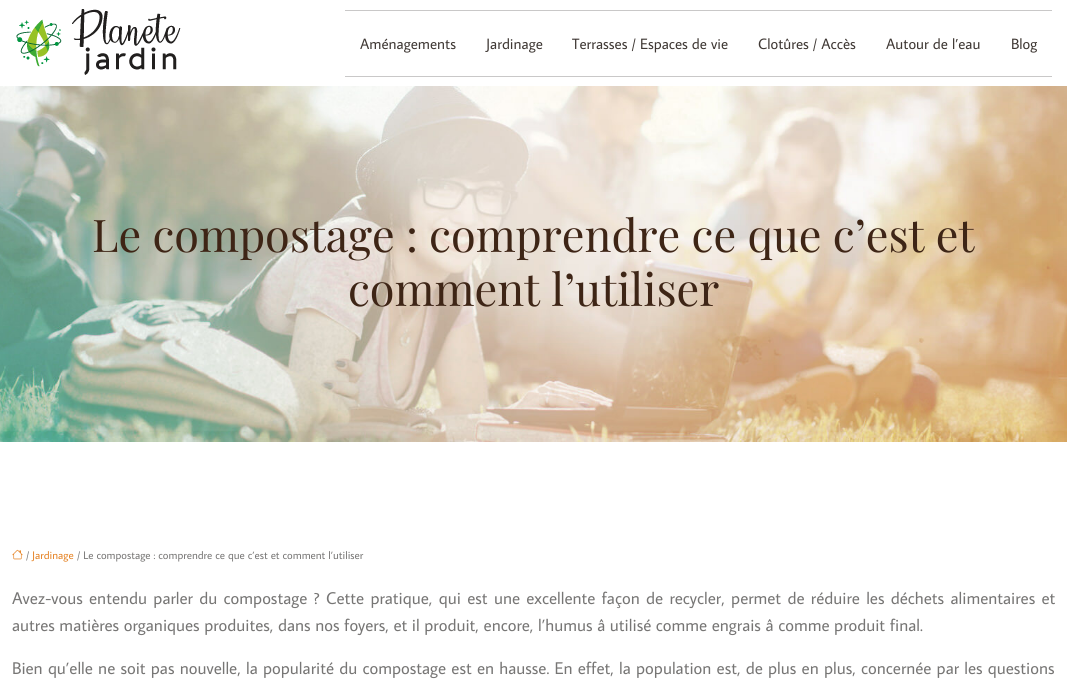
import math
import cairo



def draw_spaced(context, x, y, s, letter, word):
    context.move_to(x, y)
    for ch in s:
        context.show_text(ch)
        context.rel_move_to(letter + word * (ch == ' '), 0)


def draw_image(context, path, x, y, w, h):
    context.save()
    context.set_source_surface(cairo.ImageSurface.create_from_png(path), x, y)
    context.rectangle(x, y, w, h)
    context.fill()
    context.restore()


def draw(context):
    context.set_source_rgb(1, 1, 1)
    context.paint()
    draw_image(context, "images/1.png", 16, 9, 165, 66)
    context.set_source_rgb(201 / 255, 200 / 255, 200 / 255)
    context.rectangle(345, 10, 707, 1)
    context.fill()
    context.rectangle(345, 76, 707, 1)
    context.fill()
    draw_image(context, "images/2.png", 0, 86, 1067, 356)
    draw_image(context, "images/3.png", 12, 549, 11, 11)
    context.select_font_face("Average Sans")
    context.set_font_size(15)
    context.set_source_rgb(63 / 255, 56 / 255, 52 / 255)
    context.move_to(360, 49)
    context.show_text("Aménagements")
    context.move_to(486, 49)
    context.show_text("Jardinage")
    context.move_to(572, 49)
    context.show_text("Terrasses / Espaces de vie")
    context.move_to(758, 49)
    context.show_text("Clotûres / Accès")
    context.move_to(886, 49)
    context.show_text("Autour de l’eau")
    context.move_to(1011, 49)
    context.show_text("Blog")
    context.select_font_face("Playfair Display")
    context.set_font_size(45)
    context.set_source_rgb(62 / 255, 37 / 255, 22 / 255)
    context.move_to(92, 252)
    context.show_text("Le compostage : comprendre ce que c’est et")
    context.move_to(348, 306)
    context.show_text("comment l’utiliser")
    context.select_font_face("Average Sans")
    context.set_font_size(11)
    context.set_source_rgb(119 / 255, 118 / 255, 117 / 255)
    context.move_to(26, 559)
    context.show_text("/")
    context.set_source_rgb(229 / 255, 130 / 255, 35 / 255)
    context.move_to(32, 559)
    context.show_text("Jardinage")
    context.set_source_rgb(119 / 255, 118 / 255, 117 / 255)
    context.move_to(77, 559)
    context.show_text("/ Le compostage : comprendre ce que c’est et comment l’utiliser")
    context.set_font_size(17)
    draw_spaced(context, 12, 604, "Avez-vous entendu parler du compostage ? Cette pratique, qui est une excellente façon de recycler, permet de réduire les déchets alimentaires et", 0, 1.75)
    context.move_to(12, 631)
    context.show_text("autres matières organiques produites, dans nos foyers, et il produit, encore, l’humus â utilisé comme engrais â comme produit final.")
    draw_spaced(context, 12, 674, "Bien qu’elle ne soit pas nouvelle, la popularité du compostage est en hausse. En effet, la population est, de plus en plus, concernée par les questions", 0, 0.65)


surface = cairo.ImageSurface(cairo.Format.RGB24, 1067, 683)
context = cairo.Context(surface)
options = cairo.FontOptions()
options.set_hint_metrics(cairo.HintMetrics.OFF)
options.set_hint_style(cairo.HintStyle.NONE)
context.set_font_options(options)
context.set_miter_limit(4)
draw(context)
surface.write_to_png("out.png")
